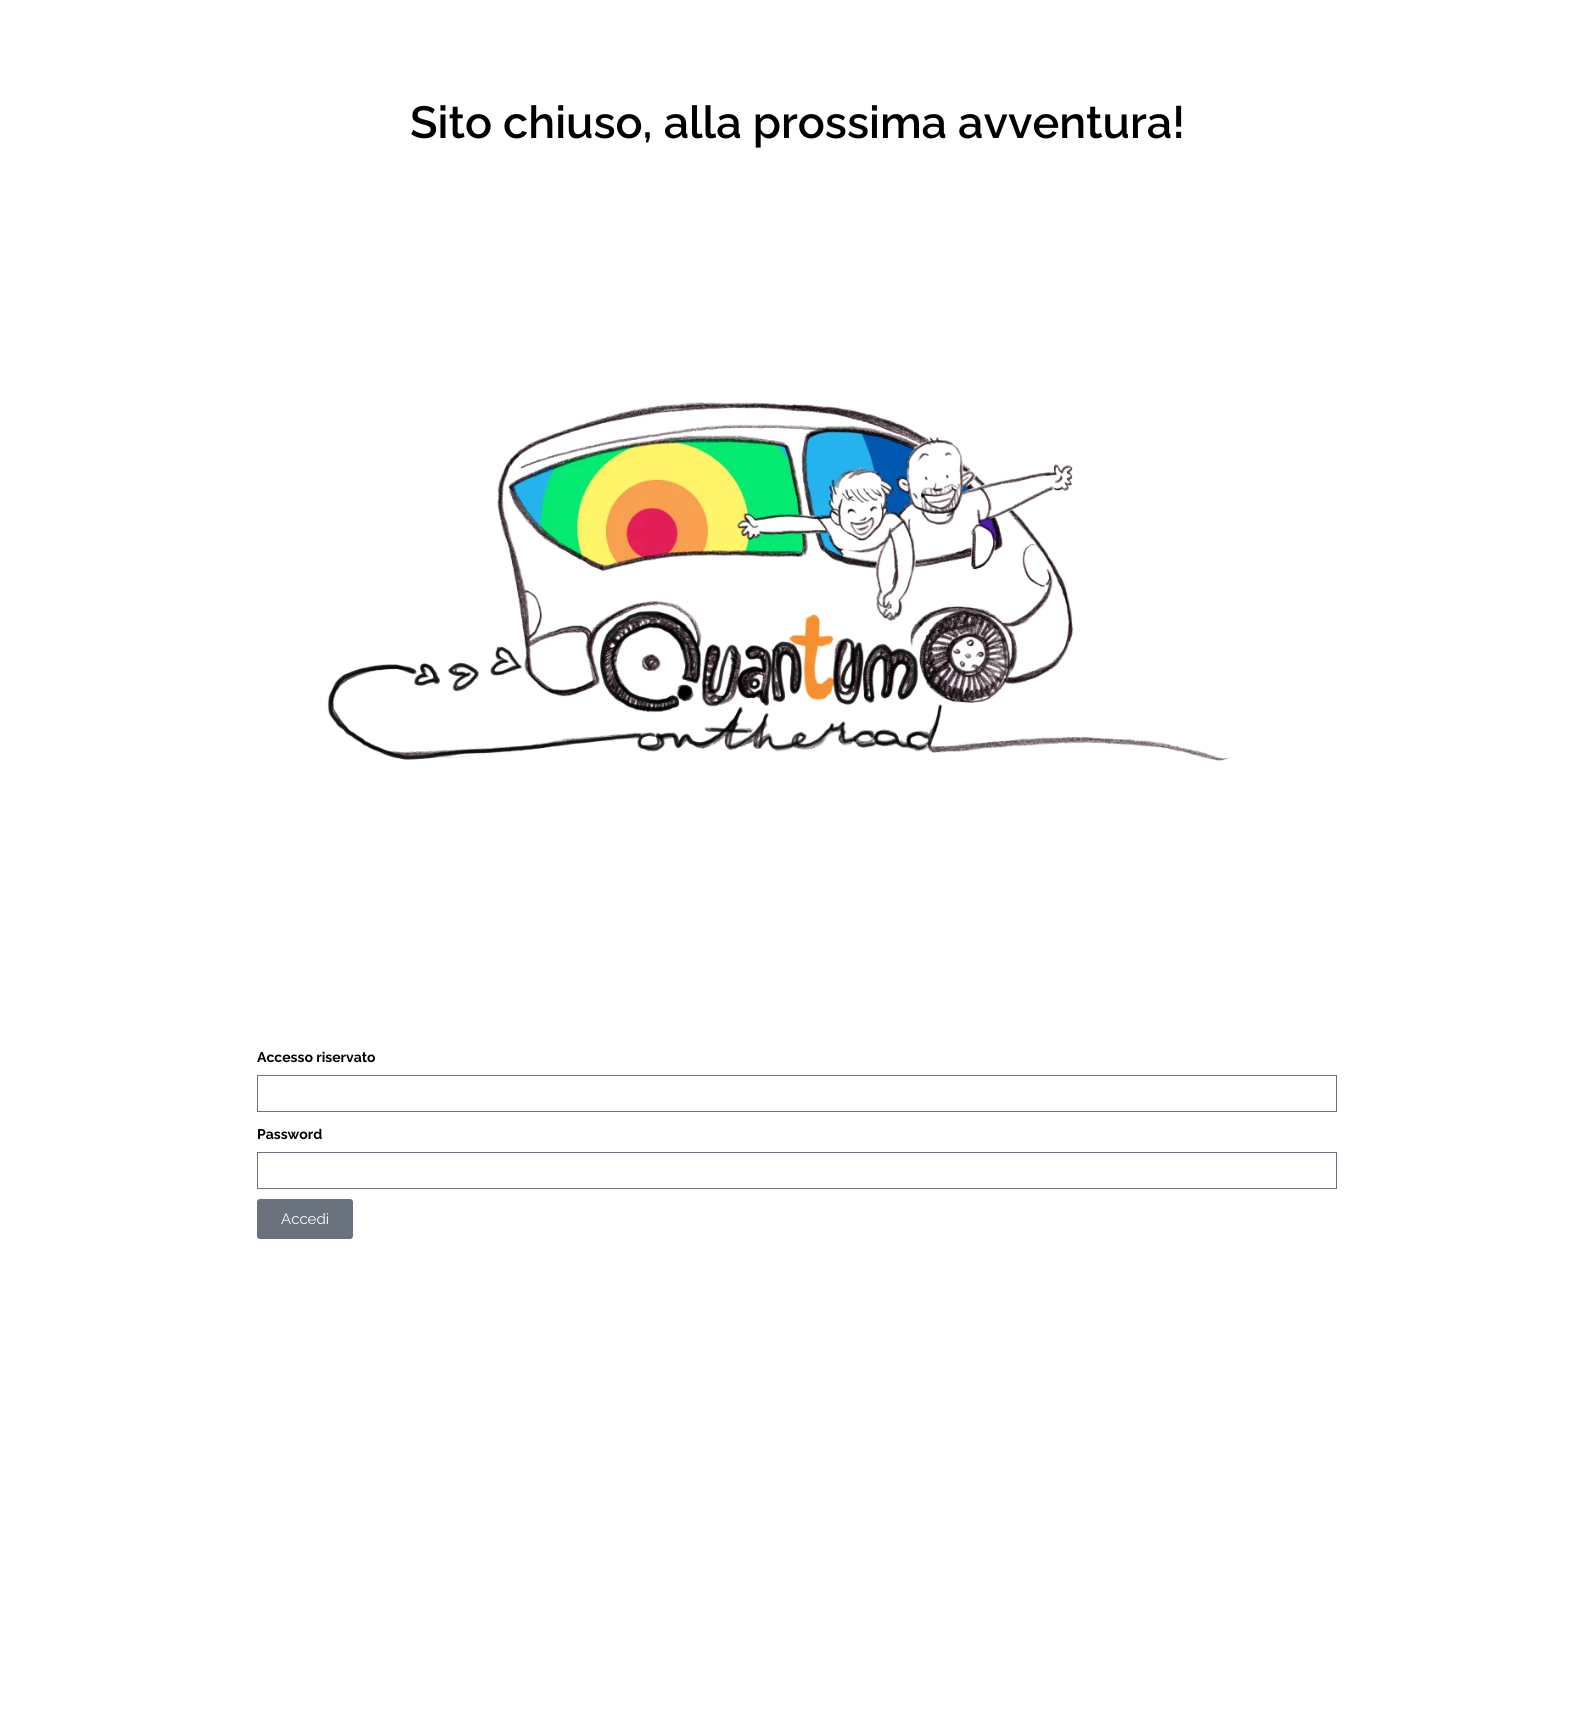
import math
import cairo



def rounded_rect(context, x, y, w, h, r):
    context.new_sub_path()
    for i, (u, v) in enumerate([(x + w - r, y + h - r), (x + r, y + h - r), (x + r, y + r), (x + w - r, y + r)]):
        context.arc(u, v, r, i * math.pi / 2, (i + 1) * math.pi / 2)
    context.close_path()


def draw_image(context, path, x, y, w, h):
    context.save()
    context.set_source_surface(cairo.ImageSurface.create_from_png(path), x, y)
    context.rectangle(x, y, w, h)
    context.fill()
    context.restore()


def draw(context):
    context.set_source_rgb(1, 1, 1)
    context.paint()
    draw_image(context, "images/1.png", 327, 401, 904, 360)
    context.rectangle(257.5, 1075.5, 1079, 36)
    context.set_source_rgb(105 / 255, 114 / 255, 125 / 255)
    context.set_line_width(1)
    context.stroke()
    context.rectangle(257.5, 1152.5, 1079, 36)
    context.stroke()
    rounded_rect(context, 257, 1199, 96, 40, 3)
    context.fill()
    context.select_font_face("Raleway Thin")
    context.set_font_size(45)
    context.set_source_rgb(0, 0, 0)
    context.move_to(410, 138)
    context.show_text("Sito chiuso, alla prossima avventura!")
    context.select_font_face("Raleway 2 Thin")
    context.set_font_size(14)
    context.move_to(257, 1062)
    context.show_text("Accesso riservato")
    context.move_to(257, 1139)
    context.show_text("Password")
    context.select_font_face("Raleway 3 Thin")
    context.set_font_size(15)
    context.set_source_rgb(1, 1, 1)
    context.move_to(281, 1224)
    context.show_text("Accedi")


surface = cairo.ImageSurface(cairo.Format.RGB24, 1594, 1729)
context = cairo.Context(surface)
options = cairo.FontOptions()
options.set_hint_metrics(cairo.HintMetrics.OFF)
options.set_hint_style(cairo.HintStyle.NONE)
context.set_font_options(options)
context.set_miter_limit(4)
draw(context)
surface.write_to_png("out.png")
